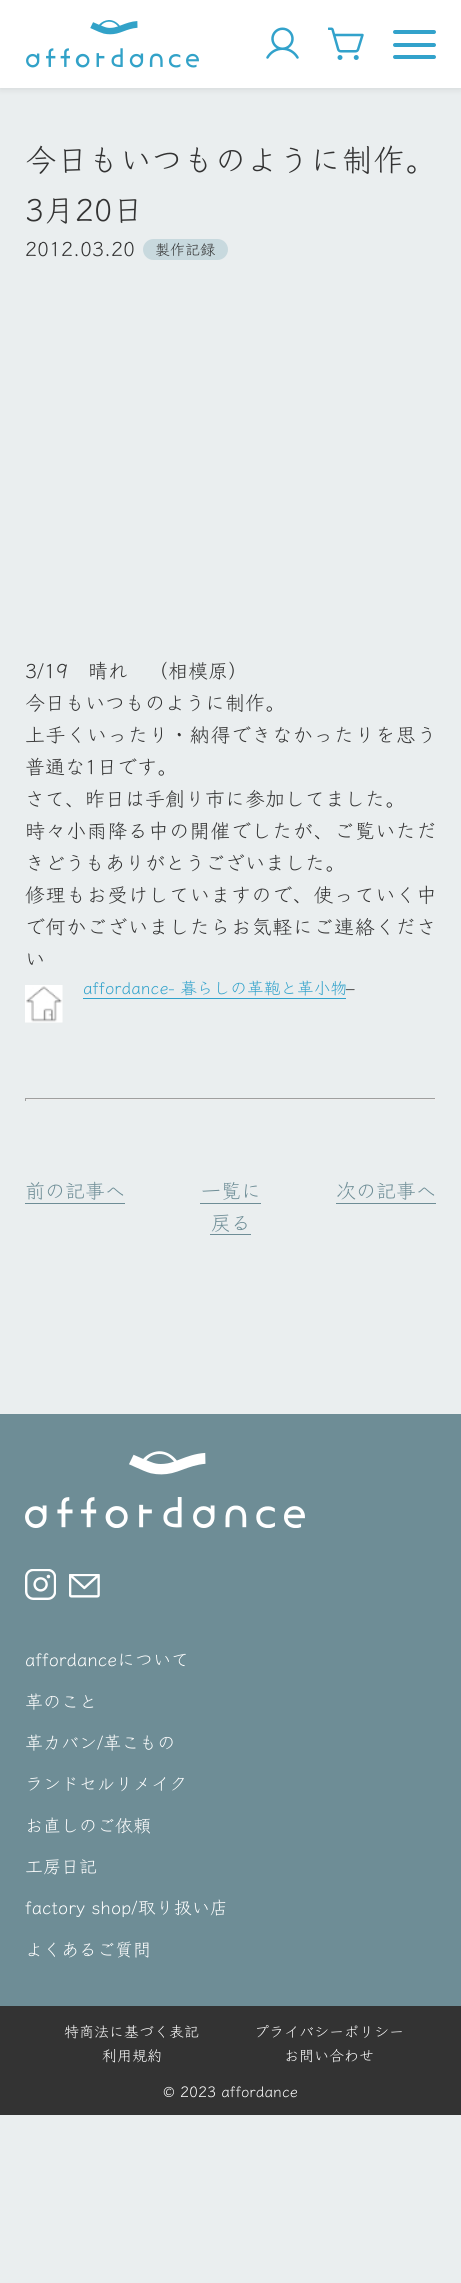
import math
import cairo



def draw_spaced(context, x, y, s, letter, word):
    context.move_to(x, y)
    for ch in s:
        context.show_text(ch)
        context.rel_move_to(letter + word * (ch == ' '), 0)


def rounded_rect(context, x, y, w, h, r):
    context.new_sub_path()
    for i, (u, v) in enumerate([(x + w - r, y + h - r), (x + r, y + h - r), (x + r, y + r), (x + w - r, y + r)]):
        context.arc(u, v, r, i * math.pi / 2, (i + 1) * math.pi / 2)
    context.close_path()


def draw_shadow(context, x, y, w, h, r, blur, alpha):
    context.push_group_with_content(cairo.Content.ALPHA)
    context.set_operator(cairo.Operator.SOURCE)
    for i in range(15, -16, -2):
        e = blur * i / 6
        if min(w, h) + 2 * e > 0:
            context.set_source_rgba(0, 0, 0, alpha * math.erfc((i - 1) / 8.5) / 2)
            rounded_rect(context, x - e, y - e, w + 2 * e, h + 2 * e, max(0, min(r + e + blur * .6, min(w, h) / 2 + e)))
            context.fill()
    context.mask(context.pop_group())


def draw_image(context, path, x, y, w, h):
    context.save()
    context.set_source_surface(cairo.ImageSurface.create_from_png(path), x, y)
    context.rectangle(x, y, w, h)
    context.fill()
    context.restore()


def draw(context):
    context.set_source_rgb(234 / 255, 238 / 255, 239 / 255)
    context.paint()
    context.set_source_rgb(51 / 255, 51 / 255, 51 / 255)
    draw_shadow(context, 0, 0, 461, 88, 0, 4, 0.16)
    context.set_source_rgb(1, 1, 1)
    context.rectangle(0, 0, 461, 88)
    context.fill()
    draw_image(context, "images/1.png", 26, 20, 173, 48)
    draw_image(context, "images/2.png", 266, 27, 33, 32)
    draw_image(context, "images/3.png", 328, 27, 36, 33)
    context.set_source_rgb(50 / 255, 162 / 255, 203 / 255)
    rounded_rect(context, 393, 30, 43, 4, 2)
    context.fill()
    rounded_rect(context, 393, 43, 43, 4, 2)
    context.fill()
    rounded_rect(context, 393, 55, 43, 4, 2)
    context.fill()
    context.set_source_rgb(200 / 255, 217 / 255, 222 / 255)
    rounded_rect(context, 143, 239, 85, 21, 10.5)
    context.fill()
    draw_image(context, "images/4.png", 25, 985, 38, 38)
    context.set_source_rgb(50 / 255, 162 / 255, 203 / 255)
    context.rectangle(83, 998, 263, 1)
    context.fill()
    context.set_source_rgb(159 / 255, 159 / 255, 159 / 255)
    context.rectangle(25, 1098, 411, 1)
    context.fill()
    context.set_source_rgb(238 / 255, 238 / 255, 238 / 255)
    context.rectangle(435, 1098, 1, 3)
    context.fill()
    context.rectangle(25, 1099, 411, 1)
    context.fill()
    context.set_source_rgb(159 / 255, 159 / 255, 159 / 255)
    context.rectangle(25, 1098, 1, 3)
    context.fill()
    context.set_source_rgb(110 / 255, 141 / 255, 150 / 255)
    context.rectangle(25, 1203, 100, 1)
    context.fill()
    context.rectangle(200, 1203, 61, 1)
    context.fill()
    context.rectangle(210, 1234, 41, 1)
    context.fill()
    context.rectangle(336, 1203, 100, 1)
    context.fill()
    context.rectangle(0, 1414, 461, 592)
    context.fill()
    draw_image(context, "images/5.png", 25, 1451, 280, 77)
    draw_image(context, "images/6.png", 25, 1569, 31, 31)
    draw_image(context, "images/7.png", 69, 1574, 31, 24)
    context.set_source_rgb(51 / 255, 51 / 255, 51 / 255)
    context.rectangle(0, 2006, 461, 109)
    context.fill()
    context.select_font_face("Klee One")
    context.set_font_size(31.25)
    draw_spaced(context, 25, 171, "今日もいつものように制作。", 0.4, 0)
    context.move_to(25, 221)
    context.show_text("3月20日")
    context.set_font_size(20)
    context.move_to(25, 256)
    context.show_text("2012.03.20")
    context.set_font_size(15)
    context.move_to(155, 255)
    context.show_text("製作記録")
    context.set_font_size(20)
    context.move_to(25, 678)
    context.show_text("3/19　晴れ　（相模原）")
    context.move_to(25, 710)
    context.show_text("今日もいつものように制作。")
    draw_spaced(context, 25, 742, "上手くいったり・納得できなかったりを思う", 0.6, 0)
    context.move_to(25, 774)
    context.show_text("普通な1日です。")
    context.move_to(25, 806)
    context.show_text("さて、昨日は手創り市に参加してました。")
    draw_spaced(context, 25, 838, "時々小雨降る中の開催でしたが、ご覧いただ", 0.6, 0)
    context.move_to(25, 870)
    context.show_text("きどうもありがとうございました。")
    draw_spaced(context, 25, 902, "修理もお受けしていますので、使っていく中", 0.6, 0)
    draw_spaced(context, 25, 934, "で何かございましたらお気軽にご連絡くださ", 0.6, 0)
    context.move_to(25, 966)
    context.show_text("い")
    context.set_font_size(16.7)
    context.set_source_rgb(50 / 255, 162 / 255, 203 / 255)
    context.move_to(83, 994)
    context.show_text("affordance- 暮らしの革鞄と革小物")
    context.set_source_rgb(51 / 255, 51 / 255, 51 / 255)
    context.move_to(346, 994)
    context.show_text("–")
    context.set_font_size(20)
    context.set_source_rgb(110 / 255, 141 / 255, 150 / 255)
    context.move_to(25, 1198)
    context.show_text("前の記事へ")
    context.move_to(201, 1198)
    context.show_text("一覧に")
    context.move_to(211, 1230)
    context.show_text("戻る")
    context.move_to(336, 1198)
    context.show_text("次の記事へ")
    context.set_font_size(18)
    context.set_source_rgb(1, 1, 1)
    context.move_to(25, 1666)
    context.show_text("affordanceについて")
    context.move_to(25, 1708)
    context.show_text("革のこと")
    context.move_to(25, 1749)
    context.show_text("革カバン/革こもの")
    context.move_to(25, 1790)
    context.show_text("ランドセルリメイク")
    context.move_to(25, 1832)
    context.show_text("お直しのご依頼")
    context.move_to(25, 1873)
    context.show_text("工房日記")
    context.move_to(25, 1914)
    context.show_text("factory shop/取り扱い店")
    context.move_to(25, 1956)
    context.show_text("よくあるご質問")
    context.set_font_size(15)
    context.move_to(64, 2037)
    context.show_text("特商法に基づく表記")
    context.move_to(254, 2037)
    context.show_text("プライバシーポリシー")
    context.move_to(102, 2061)
    context.show_text("利用規約")
    context.move_to(284, 2061)
    context.show_text("お問い合わせ")
    context.move_to(163, 2097)
    context.show_text("© 2023 affordance")


surface = cairo.ImageSurface(cairo.Format.RGB24, 461, 2283)
context = cairo.Context(surface)
options = cairo.FontOptions()
options.set_hint_metrics(cairo.HintMetrics.OFF)
options.set_hint_style(cairo.HintStyle.NONE)
context.set_font_options(options)
context.set_miter_limit(4)
draw(context)
surface.write_to_png("out.png")
